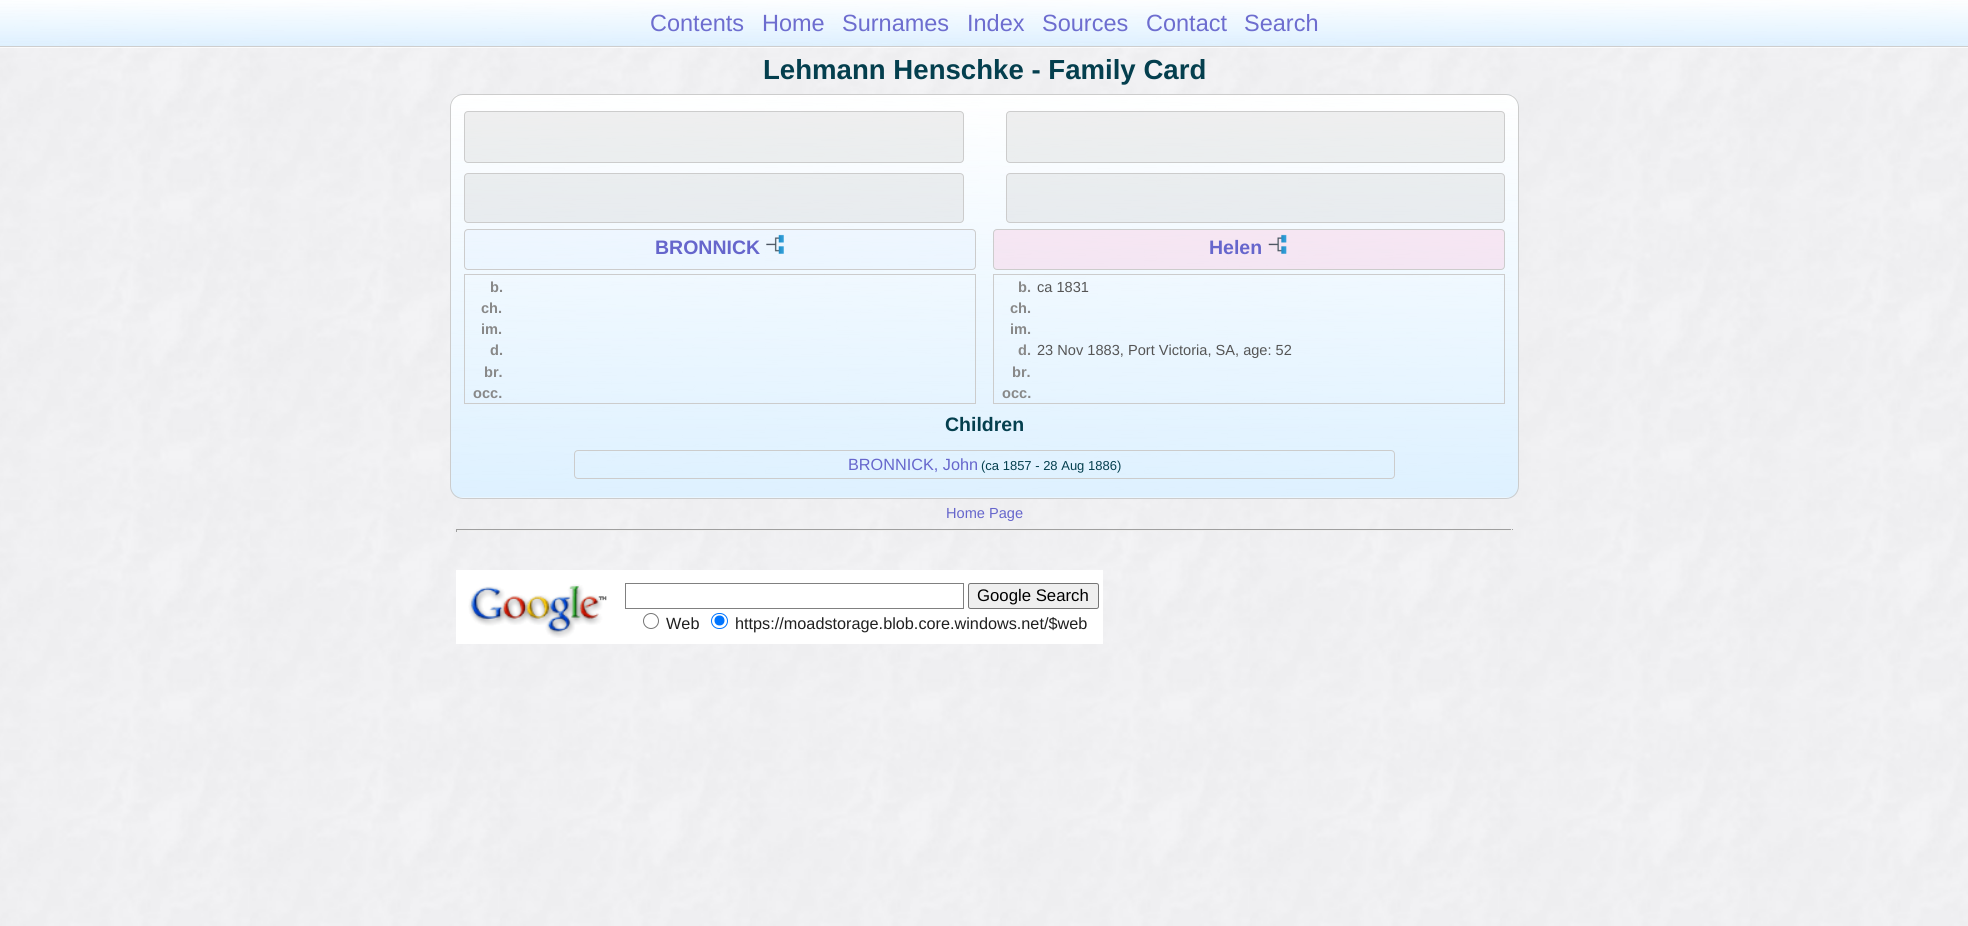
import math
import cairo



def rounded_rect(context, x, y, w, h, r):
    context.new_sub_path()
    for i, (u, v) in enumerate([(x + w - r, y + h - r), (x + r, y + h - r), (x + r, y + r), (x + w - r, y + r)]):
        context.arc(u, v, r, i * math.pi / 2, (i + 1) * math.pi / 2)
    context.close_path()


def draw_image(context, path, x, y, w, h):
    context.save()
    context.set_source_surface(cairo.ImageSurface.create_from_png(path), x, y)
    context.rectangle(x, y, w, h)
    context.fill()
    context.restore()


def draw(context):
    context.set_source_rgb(1, 1, 1)
    context.paint()
    draw_image(context, "images/1.png", 0, 0, 1968, 926)
    context.set_source_rgba(222 / 255, 241 / 255, 1, 0.95)
    context.rectangle(0, 0, 1968, 46)
    context.fill()
    draw_image(context, "images/2.png", 0, 0, 1968, 48)
    context.rectangle(0, 0, 1968, 43)
    context.fill()
    draw_image(context, "images/3.png", 0, 0, 1968, 48)
    context.set_source_rgb(206 / 255, 206 / 255, 206 / 255)
    context.rectangle(0, 46, 1968, 1)
    context.fill()
    context.set_source_rgb(222 / 255, 241 / 255, 1)
    rounded_rect(context, 450, 94, 1069, 405, 13)
    context.fill()
    draw_image(context, "images/4.png", 450, 95, 1069, 404)
    rounded_rect(context, 450.5, 94.5, 1068, 404, 12.5)
    context.set_source_rgb(204 / 255, 204 / 255, 204 / 255)
    context.set_line_width(1)
    context.stroke()
    context.set_source_rgba(200 / 255, 200 / 255, 200 / 255, 0.3)
    rounded_rect(context, 464.5, 111.5, 499, 51, 3.5)
    context.fill_preserve()
    context.set_source_rgb(204 / 255, 204 / 255, 204 / 255)
    context.stroke()
    context.set_source_rgba(200 / 255, 200 / 255, 200 / 255, 0.3)
    rounded_rect(context, 1006.5, 111.5, 498, 51, 3.5)
    context.fill_preserve()
    context.set_source_rgb(204 / 255, 204 / 255, 204 / 255)
    context.stroke()
    context.set_source_rgba(200 / 255, 200 / 255, 200 / 255, 0.3)
    rounded_rect(context, 464.5, 173.5, 499, 49, 3.5)
    context.fill_preserve()
    context.set_source_rgb(204 / 255, 204 / 255, 204 / 255)
    context.stroke()
    context.set_source_rgba(200 / 255, 200 / 255, 200 / 255, 0.3)
    rounded_rect(context, 1006.5, 173.5, 498, 49, 3.5)
    context.fill_preserve()
    context.set_source_rgb(204 / 255, 204 / 255, 204 / 255)
    context.stroke()
    context.set_source_rgba(224 / 255, 239 / 255, 254 / 255, 0.3)
    rounded_rect(context, 464.5, 229.5, 511, 40, 3.5)
    context.fill_preserve()
    context.set_source_rgb(204 / 255, 204 / 255, 204 / 255)
    context.stroke()
    draw_image(context, "images/5.png", 766, 234, 18, 20)
    context.set_source_rgba(252 / 255, 183 / 255, 214 / 255, 0.3)
    rounded_rect(context, 993.5, 229.5, 511, 40, 3.5)
    context.fill_preserve()
    context.set_source_rgb(204 / 255, 204 / 255, 204 / 255)
    context.stroke()
    draw_image(context, "images/6.png", 1268, 234, 19, 20)
    context.rectangle(464.5, 274.5, 511, 129)
    context.stroke()
    context.rectangle(993.5, 274.5, 511, 129)
    context.stroke()
    rounded_rect(context, 574.5, 450.5, 820, 28, 3.5)
    context.stroke()
    context.set_source_rgb(159 / 255, 159 / 255, 159 / 255)
    context.rectangle(456, 529, 1057, 1)
    context.fill()
    context.set_source_rgb(238 / 255, 238 / 255, 238 / 255)
    context.rectangle(1511, 529, 1, 3)
    context.fill()
    context.rectangle(456, 530, 1057, 1)
    context.fill()
    context.set_source_rgb(159 / 255, 159 / 255, 159 / 255)
    context.rectangle(456, 529, 1, 3)
    context.fill()
    context.set_source_rgb(1, 1, 1)
    context.rectangle(456, 570, 647, 74)
    context.fill()
    draw_image(context, "images/7.png", 468, 584, 139, 54)
    context.rectangle(625.5, 583.5, 338, 25)
    context.set_source_rgb(128 / 255, 128 / 255, 128 / 255)
    context.stroke()
    context.set_source_rgb(239 / 255, 239 / 255, 239 / 255)
    rounded_rect(context, 968.5, 583.5, 130, 25, 2)
    context.fill_preserve()
    context.set_source_rgb(118 / 255, 118 / 255, 118 / 255)
    context.stroke()
    context.arc(651, 621, 7.5, 0, 2 * math.pi)
    context.stroke()
    rounded_rect(context, 711.5, 613.5, 16, 15, 7.5)
    context.set_source_rgb(0, 117 / 255, 1)
    context.stroke()
    context.arc(719.5, 620.5, 5, 0, 2 * math.pi)
    context.fill()
    context.select_font_face("Liberation Sans")
    context.set_font_size(23.5)
    context.set_source_rgb(109 / 255, 109 / 255, 207 / 255)
    context.move_to(650, 31)
    context.show_text("Contents")
    context.move_to(762, 31)
    context.show_text("Home")
    context.move_to(842, 31)
    context.show_text("Surnames")
    context.move_to(967, 31)
    context.show_text("Index")
    context.move_to(1042, 31)
    context.show_text("Sources")
    context.move_to(1146, 31)
    context.show_text("Contact")
    context.move_to(1244, 31)
    context.show_text("Search")
    context.select_font_face("Liberation Sans", cairo.FontSlant.NORMAL, cairo.FontWeight.BOLD)
    context.set_font_size(27.6)
    context.set_source_rgb(4 / 255, 63 / 255, 78 / 255)
    context.move_to(763, 79)
    context.show_text("Lehmann Henschke - Family Card")
    context.set_font_size(19.5)
    context.set_source_rgb(102 / 255, 102 / 255, 204 / 255)
    context.move_to(655, 254)
    context.show_text("BRONNICK")
    context.move_to(1209, 254)
    context.show_text("Helen")
    context.set_font_size(14.6)
    context.set_source_rgb(136 / 255, 136 / 255, 136 / 255)
    context.move_to(490, 292)
    context.show_text("b.")
    context.move_to(481, 313)
    context.show_text("ch.")
    context.move_to(481, 334)
    context.show_text("im.")
    context.move_to(490, 355)
    context.show_text("d.")
    context.move_to(484, 377)
    context.show_text("br.")
    context.move_to(473, 398)
    context.show_text("occ.")
    context.move_to(1018, 292)
    context.show_text("b.")
    context.select_font_face("Liberation Sans")
    context.set_source_rgb(85 / 255, 85 / 255, 85 / 255)
    context.move_to(1037, 292)
    context.show_text("ca 1831")
    context.select_font_face("Liberation Sans", cairo.FontSlant.NORMAL, cairo.FontWeight.BOLD)
    context.set_source_rgb(136 / 255, 136 / 255, 136 / 255)
    context.move_to(1010, 313)
    context.show_text("ch.")
    context.move_to(1010, 334)
    context.show_text("im.")
    context.move_to(1018, 355)
    context.show_text("d.")
    context.select_font_face("Liberation Sans")
    context.set_source_rgb(85 / 255, 85 / 255, 85 / 255)
    context.move_to(1037, 355)
    context.show_text("23 Nov 1883, Port Victoria, SA, age: 52")
    context.select_font_face("Liberation Sans", cairo.FontSlant.NORMAL, cairo.FontWeight.BOLD)
    context.set_source_rgb(136 / 255, 136 / 255, 136 / 255)
    context.move_to(1012, 377)
    context.show_text("br.")
    context.move_to(1002, 398)
    context.show_text("occ.")
    context.set_font_size(19.5)
    context.set_source_rgb(4 / 255, 63 / 255, 78 / 255)
    context.move_to(945, 431)
    context.show_text("Children")
    context.select_font_face("Liberation Sans")
    context.set_font_size(16.25)
    context.set_source_rgb(102 / 255, 102 / 255, 204 / 255)
    context.move_to(848, 470)
    context.show_text("BRONNICK, John")
    context.set_font_size(13)
    context.set_source_rgb(4 / 255, 63 / 255, 78 / 255)
    context.move_to(981, 470)
    context.show_text("(ca 1857 - 28 Aug 1886)")
    context.set_font_size(14.6)
    context.set_source_rgb(102 / 255, 102 / 255, 204 / 255)
    context.move_to(946, 518)
    context.show_text("Home Page")
    context.set_font_size(16.75)
    context.set_source_rgb(0, 0, 0)
    context.move_to(977, 601)
    context.show_text("Google Search")
    context.set_font_size(16.25)
    context.set_source_rgb(32 / 255, 32 / 255, 32 / 255)
    context.move_to(666, 629)
    context.show_text("Web")
    context.move_to(735, 629)
    context.show_text("https://moadstorage.blob.core.windows.net/$web")


surface = cairo.ImageSurface(cairo.Format.RGB24, 1968, 926)
context = cairo.Context(surface)
options = cairo.FontOptions()
options.set_hint_metrics(cairo.HintMetrics.OFF)
options.set_hint_style(cairo.HintStyle.NONE)
context.set_font_options(options)
context.set_miter_limit(4)
draw(context)
surface.write_to_png("out.png")
